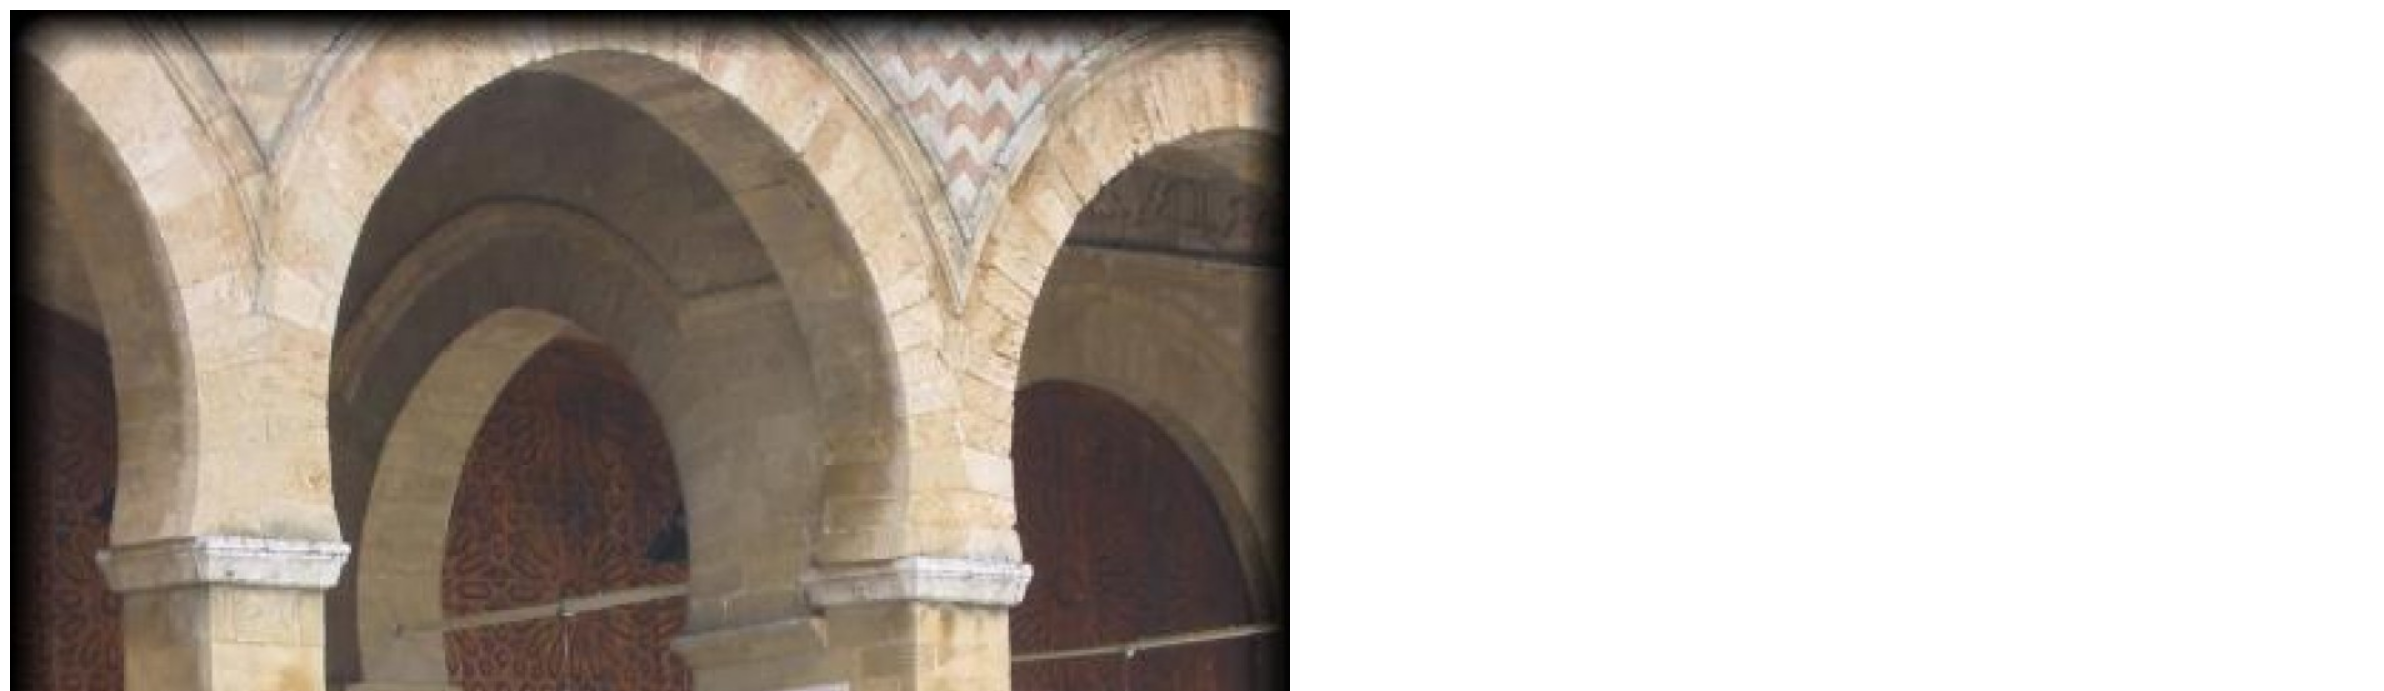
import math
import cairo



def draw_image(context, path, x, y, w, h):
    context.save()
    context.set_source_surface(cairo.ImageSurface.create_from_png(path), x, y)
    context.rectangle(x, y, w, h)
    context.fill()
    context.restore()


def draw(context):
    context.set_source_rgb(1, 1, 1)
    context.paint()
    draw_image(context, "images/1.png", 10, 10, 1280, 681)


surface = cairo.ImageSurface(cairo.Format.RGB24, 2384, 691)
context = cairo.Context(surface)
options = cairo.FontOptions()
options.set_hint_metrics(cairo.HintMetrics.OFF)
options.set_hint_style(cairo.HintStyle.NONE)
context.set_font_options(options)
context.set_miter_limit(4)
draw(context)
surface.write_to_png("out.png")
